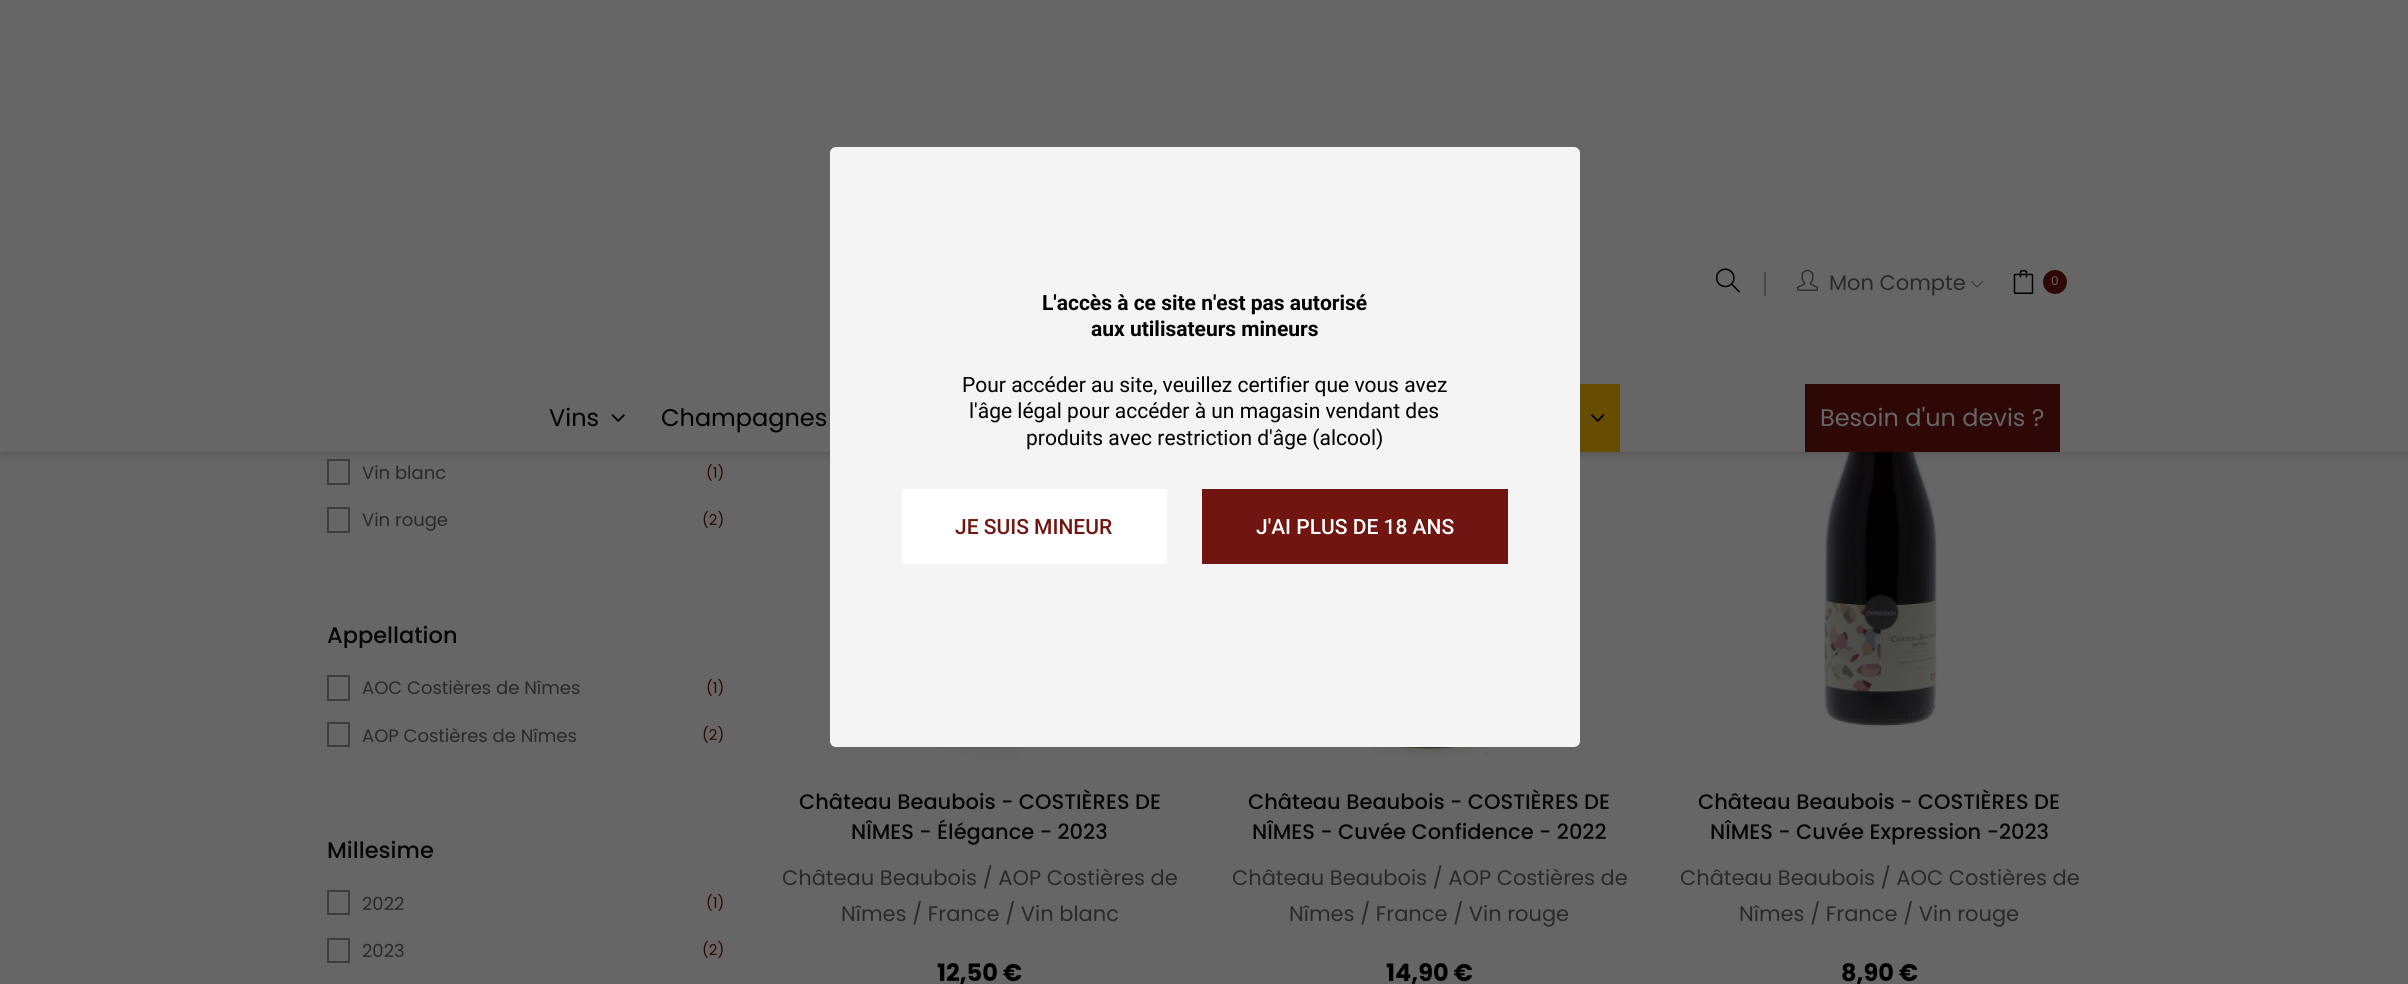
import math
import cairo



def rounded_rect(context, x, y, w, h, r):
    context.new_sub_path()
    for i, (u, v) in enumerate([(x + w - r, y + h - r), (x + r, y + h - r), (x + r, y + r), (x + w - r, y + r)]):
        context.arc(u, v, r, i * math.pi / 2, (i + 1) * math.pi / 2)
    context.close_path()


def draw_shadow(context, x, y, w, h, r, blur, alpha):
    context.push_group_with_content(cairo.Content.ALPHA)
    context.set_operator(cairo.Operator.SOURCE)
    for i in range(15, -16, -2):
        e = blur * i / 6
        if min(w, h) + 2 * e > 0:
            context.set_source_rgba(0, 0, 0, alpha * math.erfc((i - 1) / 8.5) / 2)
            rounded_rect(context, x - e, y - e, w + 2 * e, h + 2 * e, max(0, min(r + e + blur * .6, min(w, h) / 2 + e)))
            context.fill()
    context.mask(context.pop_group())


def draw_image(context, path, x, y, w, h):
    context.save()
    context.set_source_surface(cairo.ImageSurface.create_from_png(path), x, y)
    context.rectangle(x, y, w, h)
    context.fill()
    context.restore()


def draw(context):
    context.set_source_rgb(102 / 255, 102 / 255, 102 / 255)
    context.paint()
    context.rectangle(328, 460, 21, 24)
    context.set_source_rgb(61 / 255, 61 / 255, 61 / 255)
    context.stroke()
    draw_image(context, "images/9.png", 1824, 452, 114, 275)
    context.set_source_rgb(0, 0, 0)
    draw_shadow(context, 2, 2, 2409, 451, 0, 5, 0.2)
    context.set_source_rgb(102 / 255, 102 / 255, 102 / 255)
    context.rectangle(0, 0, 2408, 452)
    context.fill()
    draw_image(context, "images/1.png", 1715, 268, 25, 25)
    context.set_source_rgb(73 / 255, 73 / 255, 73 / 255)
    context.rectangle(1764, 272, 2, 24)
    context.fill()
    draw_image(context, "images/2.png", 1797, 269, 21, 22)
    draw_image(context, "images/3.png", 1971, 281, 12, 7)
    draw_image(context, "images/4.png", 2013, 270, 21, 24)
    context.set_source_rgb(45 / 255, 8 / 255, 7 / 255)
    context.arc(2055, 282, 12, 0, 2 * math.pi)
    context.fill()
    draw_image(context, "images/5.png", 611, 414, 14, 8)
    context.set_source_rgb(102 / 255, 77 / 255, 2 / 255)
    context.rectangle(1580, 384, 40, 68)
    context.fill()
    draw_image(context, "images/6.png", 1591, 414, 14, 8)
    context.set_source_rgb(45 / 255, 8 / 255, 7 / 255)
    context.rectangle(1805, 384, 255, 68)
    context.fill()
    context.set_source_rgb(244 / 255, 244 / 255, 244 / 255)
    rounded_rect(context, 830, 147, 750, 600, 6)
    context.fill()
    context.set_source_rgb(1, 1, 1)
    context.rectangle(902, 489, 265, 75)
    context.fill()
    context.set_source_rgb(113 / 255, 21 / 255, 17 / 255)
    context.rectangle(1202, 489, 306, 75)
    context.fill()
    context.rectangle(328, 508, 21, 24)
    context.set_source_rgb(61 / 255, 61 / 255, 61 / 255)
    context.stroke()
    context.rectangle(328, 676, 21, 24)
    context.stroke()
    context.rectangle(328, 723, 21, 23)
    context.stroke()
    context.rectangle(328, 891, 21, 23)
    context.stroke()
    context.rectangle(328, 939, 21, 23)
    context.stroke()
    draw_image(context, "images/7.png", 864, 747, 169, 14)
    draw_image(context, "images/8.png", 1364, 747, 133, 11)
    context.select_font_face("Poppins")
    context.set_font_size(21)
    context.set_source_rgb(41 / 255, 41 / 255, 41 / 255)
    context.move_to(1829, 290)
    context.show_text("Mon Compte")
    context.set_font_size(12)
    context.set_source_rgb(102 / 255, 102 / 255, 102 / 255)
    context.move_to(2051, 285)
    context.show_text("0")
    context.set_font_size(24)
    context.set_source_rgb(0, 0, 0)
    context.move_to(549, 426)
    context.show_text("Vins")
    context.move_to(661, 426)
    context.show_text("Champagnes")
    context.set_source_rgb(102 / 255, 102 / 255, 102 / 255)
    context.move_to(1820, 426)
    context.show_text("Besoin d'un devis ?")
    context.select_font_face("Roboto", cairo.FontSlant.NORMAL, cairo.FontWeight.BOLD)
    context.set_font_size(21)
    context.set_source_rgb(0, 0, 0)
    context.move_to(1042, 310)
    context.show_text("L'accès à ce site n'est pas autorisé")
    context.move_to(1091, 336)
    context.show_text("aux utilisateurs mineurs")
    context.select_font_face("Roboto")
    context.move_to(962, 392)
    context.show_text("Pour accéder au site, veuillez certifier que vous avez")
    context.move_to(969, 418)
    context.show_text("l'âge légal pour accéder à un magasin vendant des")
    context.move_to(1026, 445)
    context.show_text("produits avec restriction d'âge (alcool)")
    context.select_font_face("Roboto Medium")
    context.set_source_rgb(113 / 255, 21 / 255, 17 / 255)
    context.move_to(955, 534)
    context.show_text("JE SUIS MINEUR")
    context.set_source_rgb(1, 1, 1)
    context.move_to(1256, 534)
    context.show_text("J'AI PLUS DE 18 ANS")
    context.select_font_face("Poppins")
    context.set_font_size(18)
    context.set_source_rgb(41 / 255, 41 / 255, 41 / 255)
    context.move_to(362, 479)
    context.show_text("Vin blanc")
    context.set_font_size(15)
    context.set_source_rgb(45 / 255, 8 / 255, 7 / 255)
    context.move_to(706, 478)
    context.show_text("(1)")
    context.set_font_size(18)
    context.set_source_rgb(41 / 255, 41 / 255, 41 / 255)
    context.move_to(362, 526)
    context.show_text("Vin rouge")
    context.set_font_size(15)
    context.set_source_rgb(45 / 255, 8 / 255, 7 / 255)
    context.move_to(702, 525)
    context.show_text("(2)")
    context.save()
    context.rectangle(327, 623, 360, 25)
    context.clip()
    context.select_font_face("Poppins Medium")
    context.set_font_size(22.5)
    context.set_source_rgb(7 / 255, 7 / 255, 7 / 255)
    context.move_to(327, 643)
    context.show_text("Appellation")
    context.restore()
    context.set_font_size(18)
    context.set_source_rgb(41 / 255, 41 / 255, 41 / 255)
    context.move_to(362, 694)
    context.show_text("AOC Costières de Nîmes")
    context.set_font_size(15)
    context.set_source_rgb(45 / 255, 8 / 255, 7 / 255)
    context.move_to(706, 693)
    context.show_text("(1)")
    context.set_font_size(18)
    context.set_source_rgb(41 / 255, 41 / 255, 41 / 255)
    context.move_to(362, 742)
    context.show_text("AOP Costières de Nîmes")
    context.set_font_size(15)
    context.set_source_rgb(45 / 255, 8 / 255, 7 / 255)
    context.move_to(702, 740)
    context.show_text("(2)")
    context.select_font_face("Poppins Medium")
    context.set_font_size(22.5)
    context.set_source_rgb(7 / 255, 7 / 255, 7 / 255)
    context.move_to(327, 858)
    context.show_text("Millesime")
    context.select_font_face("Poppins")
    context.set_font_size(18)
    context.set_source_rgb(41 / 255, 41 / 255, 41 / 255)
    context.move_to(362, 910)
    context.show_text("2022")
    context.set_font_size(15)
    context.set_source_rgb(45 / 255, 8 / 255, 7 / 255)
    context.move_to(706, 908)
    context.show_text("(1)")
    context.set_font_size(18)
    context.set_source_rgb(41 / 255, 41 / 255, 41 / 255)
    context.move_to(362, 957)
    context.show_text("2023")
    context.set_font_size(15)
    context.set_source_rgb(45 / 255, 8 / 255, 7 / 255)
    context.move_to(702, 955)
    context.show_text("(2)")
    context.select_font_face("Poppins Medium")
    context.set_font_size(21)
    context.set_source_rgb(7 / 255, 7 / 255, 7 / 255)
    context.move_to(799, 809)
    context.show_text("Château Beaubois - COSTIÈRES DE")
    context.move_to(851, 839)
    context.show_text("NÎMES - Élégance - 2023")
    context.select_font_face("Poppins")
    context.set_source_rgb(41 / 255, 41 / 255, 41 / 255)
    context.move_to(782, 885)
    context.show_text("Château Beaubois / AOP Costières de")
    context.move_to(841, 921)
    context.show_text("Nîmes / France / Vin blanc")
    context.select_font_face("Poppins", cairo.FontSlant.NORMAL, cairo.FontWeight.BOLD)
    context.set_font_size(24)
    context.set_source_rgb(0, 0, 0)
    context.move_to(937, 981)
    context.show_text("12,50 €")
    context.select_font_face("Poppins Medium")
    context.set_font_size(21)
    context.set_source_rgb(7 / 255, 7 / 255, 7 / 255)
    context.move_to(1248, 809)
    context.show_text("Château Beaubois - COSTIÈRES DE")
    context.move_to(1252, 839)
    context.show_text("NÎMES - Cuvée Confidence - 2022")
    context.select_font_face("Poppins")
    context.set_source_rgb(41 / 255, 41 / 255, 41 / 255)
    context.move_to(1232, 885)
    context.show_text("Château Beaubois / AOP Costières de")
    context.move_to(1289, 921)
    context.show_text("Nîmes / France / Vin rouge")
    context.select_font_face("Poppins", cairo.FontSlant.NORMAL, cairo.FontWeight.BOLD)
    context.set_font_size(24)
    context.set_source_rgb(0, 0, 0)
    context.move_to(1386, 981)
    context.show_text("14,90 €")
    context.select_font_face("Poppins Medium")
    context.set_font_size(21)
    context.set_source_rgb(7 / 255, 7 / 255, 7 / 255)
    context.move_to(1698, 809)
    context.show_text("Château Beaubois - COSTIÈRES DE")
    context.move_to(1710, 839)
    context.show_text("NÎMES - Cuvée Expression -2023")
    context.select_font_face("Poppins")
    context.set_source_rgb(41 / 255, 41 / 255, 41 / 255)
    context.move_to(1680, 885)
    context.show_text("Château Beaubois / AOC Costières de")
    context.move_to(1739, 921)
    context.show_text("Nîmes / France / Vin rouge")
    context.select_font_face("Poppins", cairo.FontSlant.NORMAL, cairo.FontWeight.BOLD)
    context.set_font_size(24)
    context.set_source_rgb(0, 0, 0)
    context.move_to(1841, 981)
    context.show_text("8,90 €")


surface = cairo.ImageSurface(cairo.Format.RGB24, 2408, 984)
context = cairo.Context(surface)
options = cairo.FontOptions()
options.set_hint_metrics(cairo.HintMetrics.OFF)
options.set_hint_style(cairo.HintStyle.NONE)
context.set_font_options(options)
context.set_miter_limit(4)
draw(context)
surface.write_to_png("out.png")
